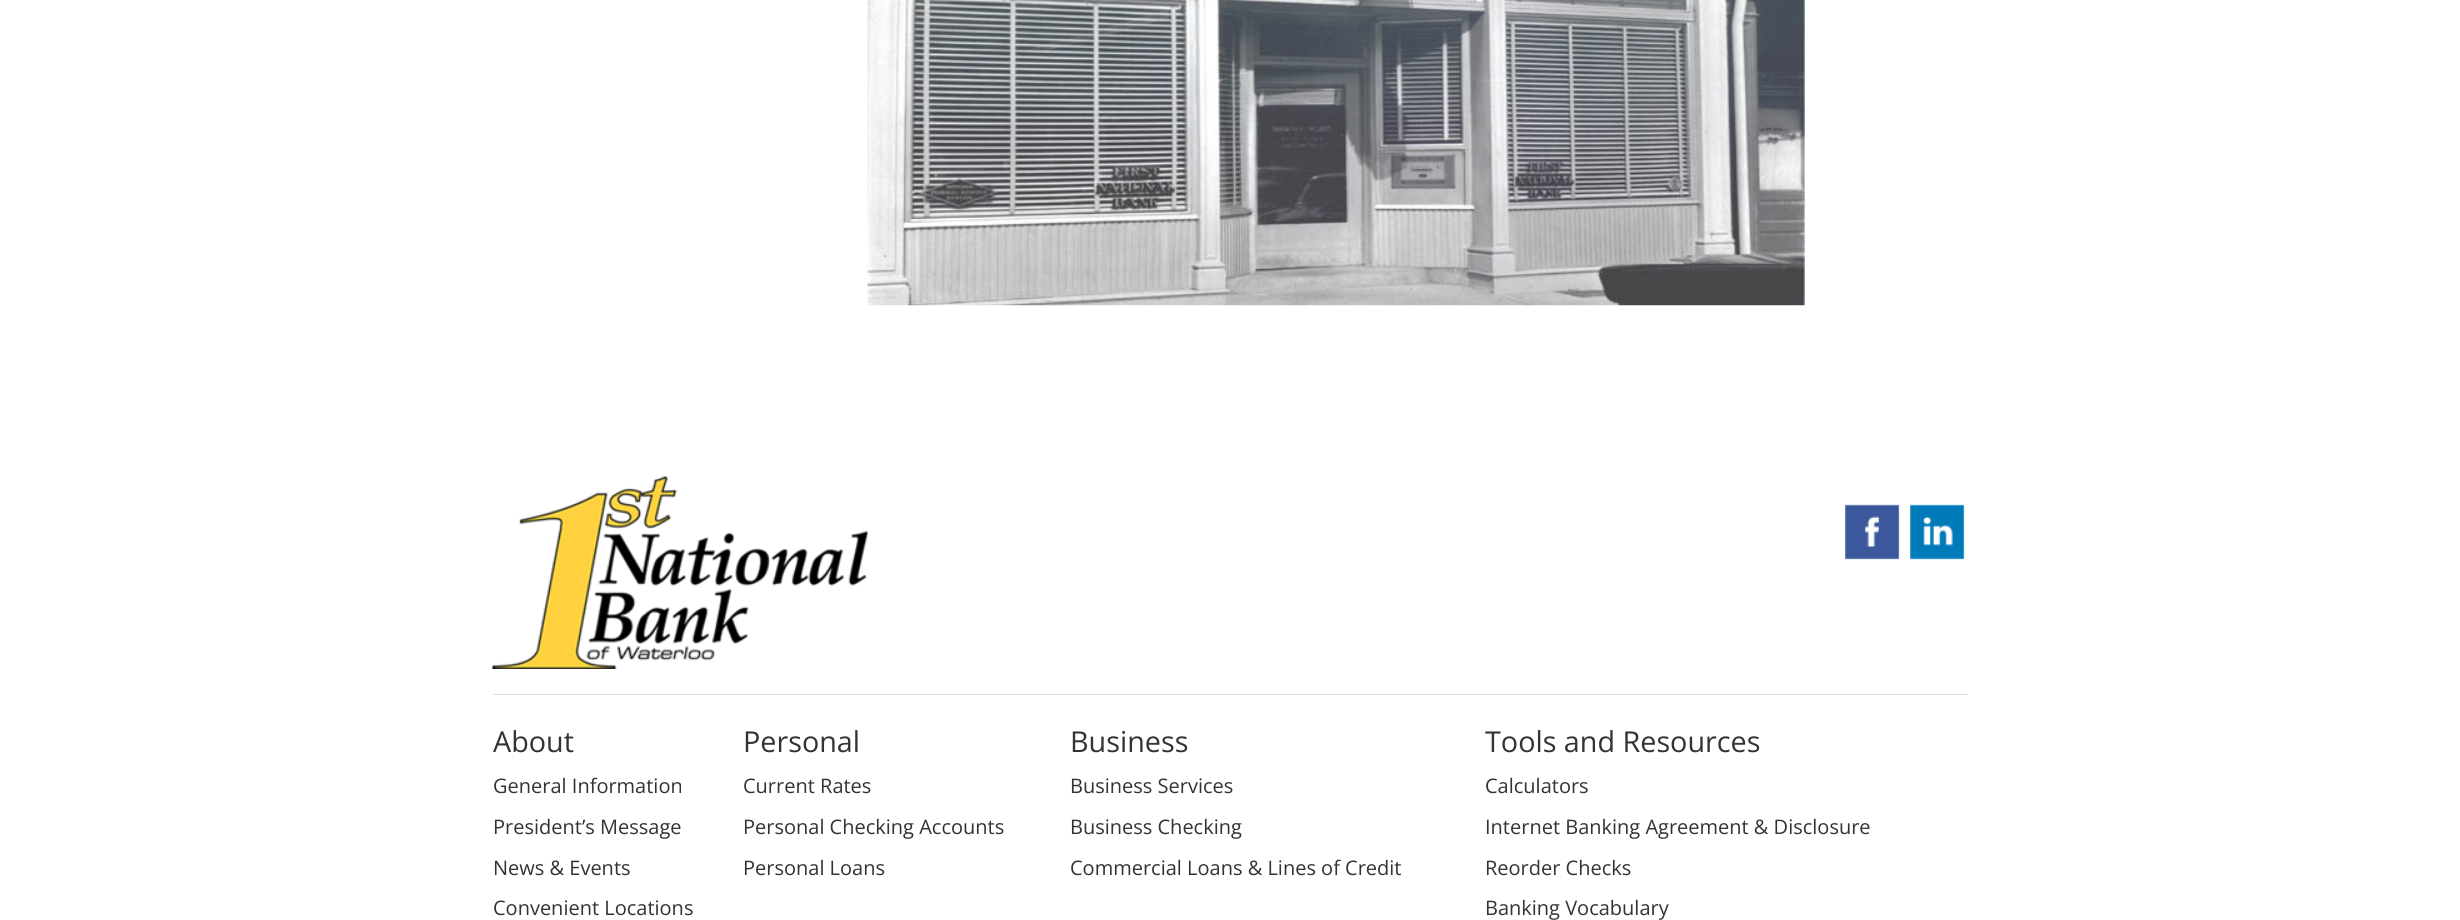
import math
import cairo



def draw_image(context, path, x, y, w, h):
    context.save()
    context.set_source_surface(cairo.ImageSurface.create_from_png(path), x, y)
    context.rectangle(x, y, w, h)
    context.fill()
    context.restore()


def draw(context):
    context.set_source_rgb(1, 1, 1)
    context.paint()
    draw_image(context, "images/1.png", 867, 0, 938, 306)
    draw_image(context, "images/2.png", 492, 476, 376, 193)
    draw_image(context, "images/3.png", 1844, 504, 56, 56)
    draw_image(context, "images/4.png", 1909, 504, 56, 56)
    context.set_source_rgb(221 / 255, 221 / 255, 221 / 255)
    context.rectangle(493, 694, 1475, 1)
    context.fill()
    context.select_font_face("Open Sans")
    context.set_font_size(28.75)
    context.set_source_rgb(51 / 255, 51 / 255, 51 / 255)
    context.move_to(493, 752)
    context.show_text("About")
    context.set_font_size(20)
    context.move_to(493, 793)
    context.show_text("General Information")
    context.move_to(493, 834)
    context.show_text("President’s Message")
    context.move_to(493, 875)
    context.show_text("News & Events")
    context.move_to(493, 915)
    context.show_text("Convenient Locations")
    context.set_font_size(28.75)
    context.move_to(743, 752)
    context.show_text("Personal")
    context.set_font_size(20)
    context.move_to(743, 793)
    context.show_text("Current Rates")
    context.move_to(743, 834)
    context.show_text("Personal Checking Accounts")
    context.move_to(743, 875)
    context.show_text("Personal Loans")
    context.set_font_size(28.75)
    context.move_to(1070, 752)
    context.show_text("Business")
    context.set_font_size(20)
    context.move_to(1070, 793)
    context.show_text("Business Services")
    context.move_to(1070, 834)
    context.show_text("Business Checking")
    context.move_to(1070, 875)
    context.show_text("Commercial Loans & Lines of Credit")
    context.set_font_size(28.75)
    context.move_to(1485, 752)
    context.show_text("Tools and Resources")
    context.set_font_size(20)
    context.move_to(1485, 793)
    context.show_text("Calculators")
    context.move_to(1485, 834)
    context.show_text("Internet Banking Agreement & Disclosure")
    context.move_to(1485, 875)
    context.show_text("Reorder Checks")
    context.move_to(1485, 915)
    context.show_text("Banking Vocabulary")


surface = cairo.ImageSurface(cairo.Format.RGB24, 2460, 920)
context = cairo.Context(surface)
options = cairo.FontOptions()
options.set_hint_metrics(cairo.HintMetrics.OFF)
options.set_hint_style(cairo.HintStyle.NONE)
context.set_font_options(options)
context.set_miter_limit(4)
draw(context)
surface.write_to_png("out.png")
